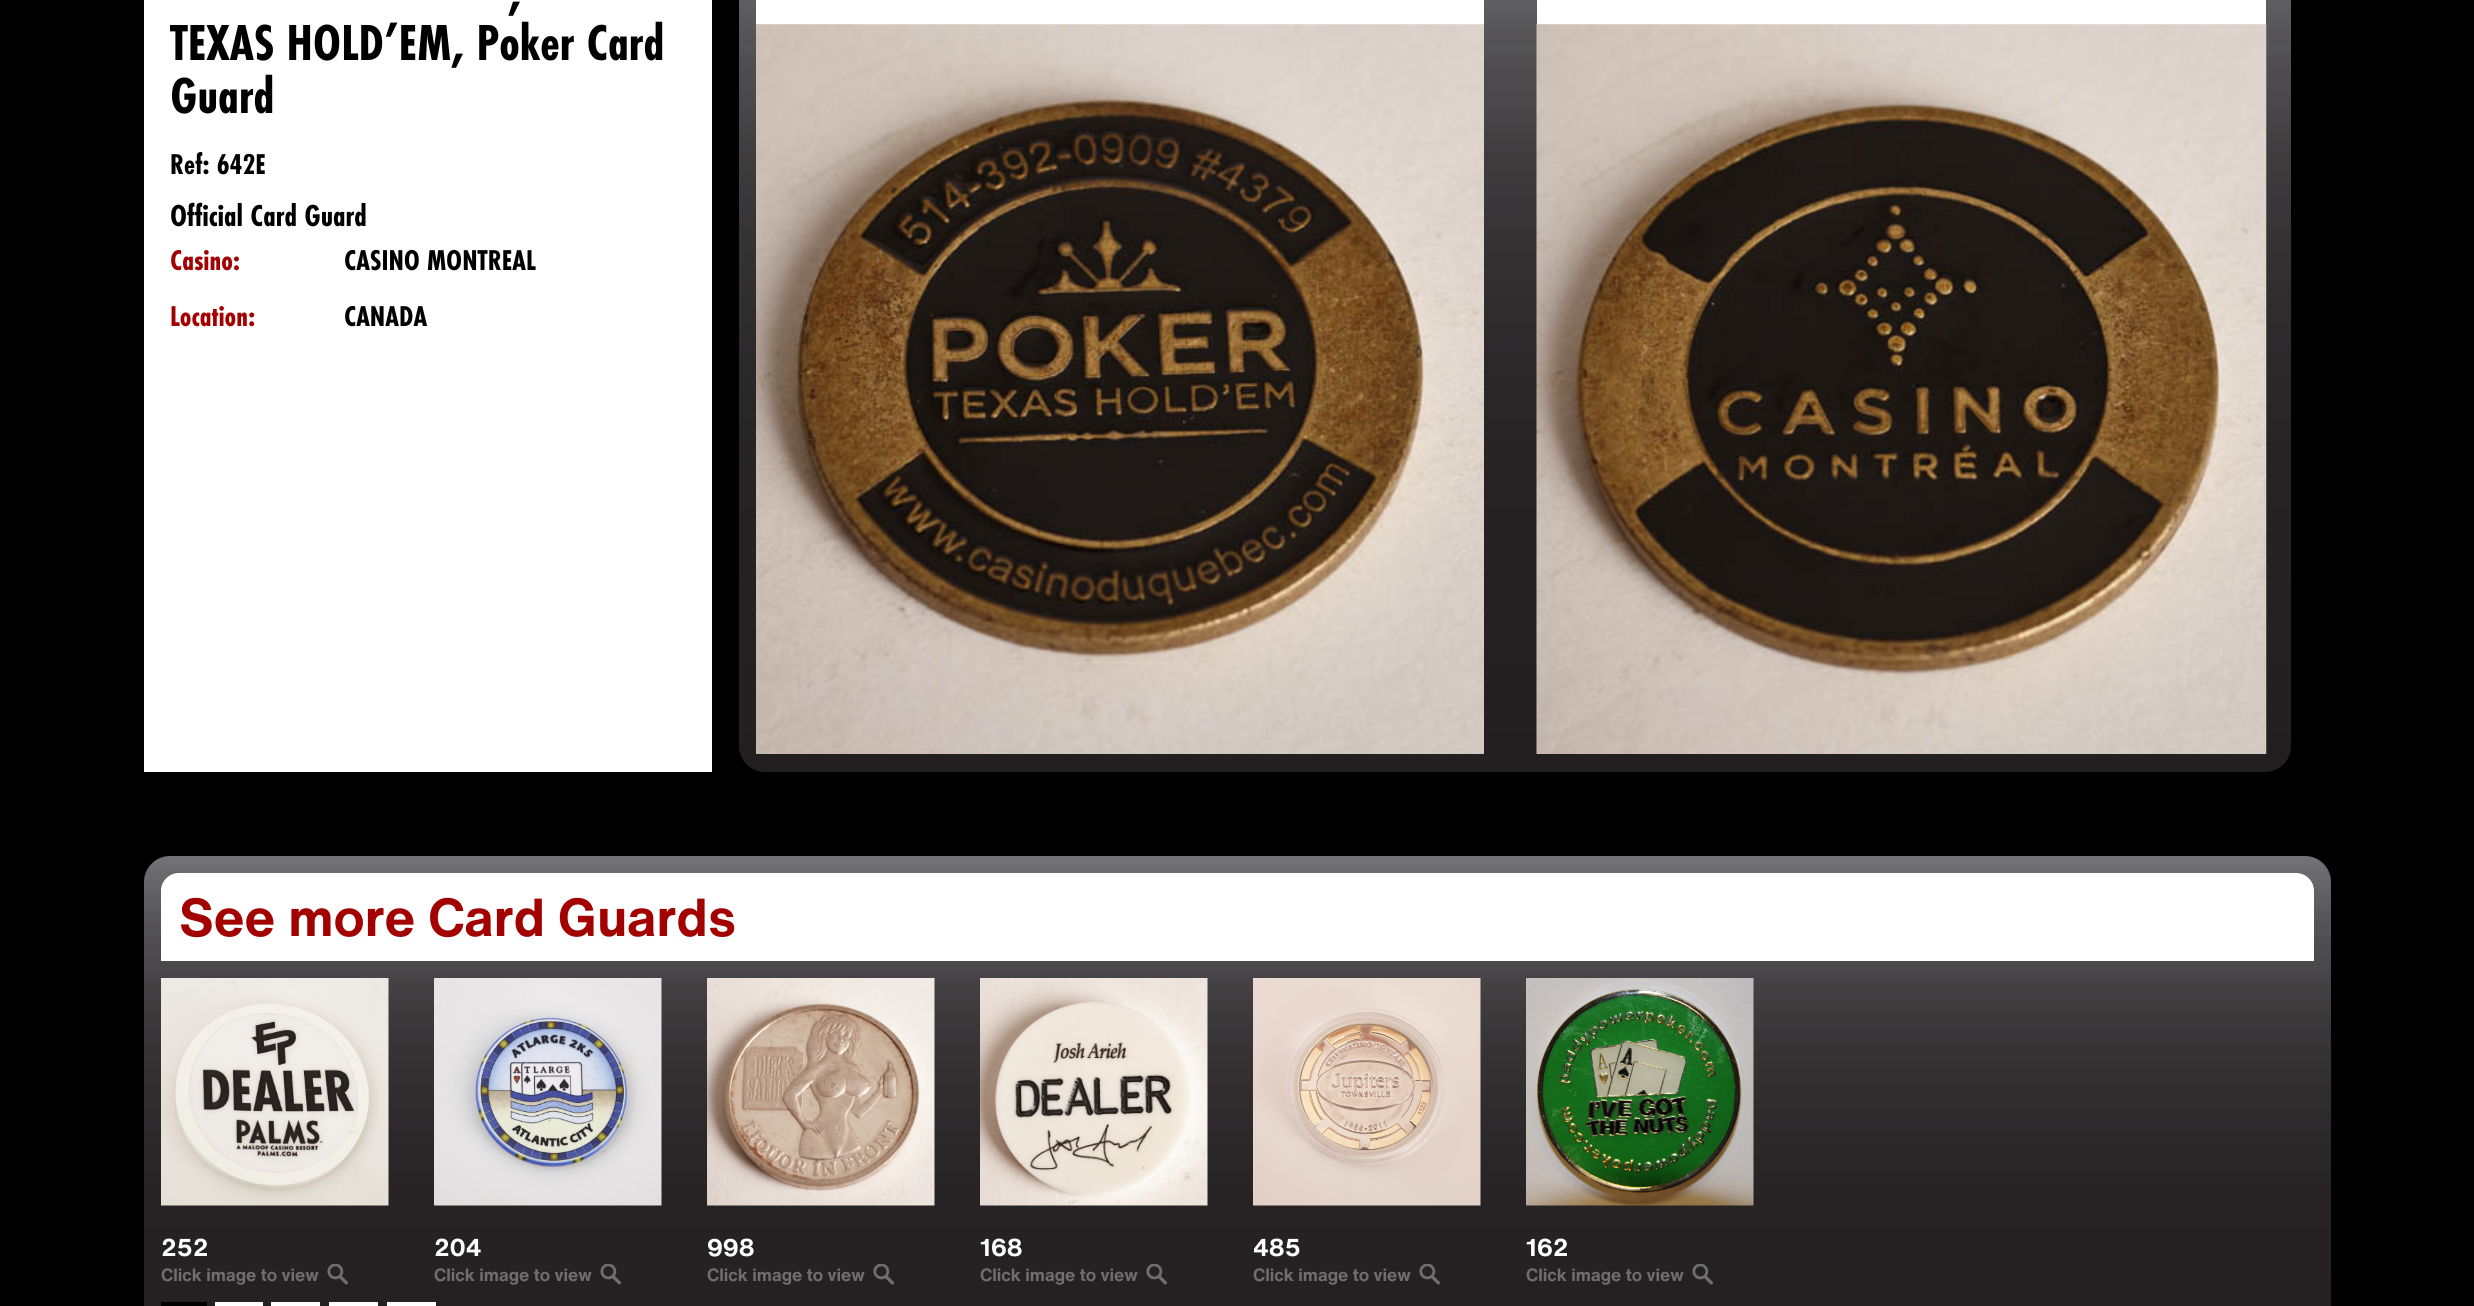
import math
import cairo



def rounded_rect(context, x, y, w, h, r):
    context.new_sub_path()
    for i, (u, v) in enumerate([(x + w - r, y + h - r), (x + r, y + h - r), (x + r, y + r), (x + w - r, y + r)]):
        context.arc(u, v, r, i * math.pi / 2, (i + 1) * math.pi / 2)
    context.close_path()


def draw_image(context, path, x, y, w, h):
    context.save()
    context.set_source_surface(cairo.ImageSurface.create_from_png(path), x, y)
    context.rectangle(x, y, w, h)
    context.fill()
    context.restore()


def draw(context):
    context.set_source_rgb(0, 0, 0)
    context.paint()
    context.set_source_rgb(1, 1, 1)
    context.rectangle(144, 0, 568, 772)
    context.fill()
    gradient = cairo.LinearGradient(1515, -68, 1515, 772)
    gradient.add_color_stop_rgba(0, 116 / 255, 116 / 255, 118 / 255, 1)
    gradient.add_color_stop_rgba(0.02, 112 / 255, 111 / 255, 116 / 255, 1)
    gradient.add_color_stop_rgba(0.02, 109 / 255, 108 / 255, 113 / 255, 1)
    gradient.add_color_stop_rgba(0.03, 109 / 255, 109 / 255, 111 / 255, 1)
    gradient.add_color_stop_rgba(0.03, 106 / 255, 105 / 255, 110 / 255, 1)
    gradient.add_color_stop_rgba(0.04, 106 / 255, 105 / 255, 110 / 255, 1)
    gradient.add_color_stop_rgba(0.04, 104 / 255, 104 / 255, 106 / 255, 1)
    gradient.add_color_stop_rgba(0.05, 103 / 255, 103 / 255, 105 / 255, 1)
    gradient.add_color_stop_rgba(0.06, 100 / 255, 100 / 255, 102 / 255, 1)
    gradient.add_color_stop_rgba(0.08, 94 / 255, 94 / 255, 96 / 255, 1)
    gradient.add_color_stop_rgba(0.09, 94 / 255, 94 / 255, 96 / 255, 1)
    gradient.add_color_stop_rgba(0.1, 90 / 255, 90 / 255, 92 / 255, 1)
    gradient.add_color_stop_rgba(0.13, 84 / 255, 82 / 255, 85 / 255, 1)
    gradient.add_color_stop_rgba(0.14, 84 / 255, 84 / 255, 86 / 255, 1)
    gradient.add_color_stop_rgba(0.15, 80 / 255, 78 / 255, 81 / 255, 1)
    gradient.add_color_stop_rgba(0.21, 73 / 255, 71 / 255, 74 / 255, 1)
    gradient.add_color_stop_rgba(0.24, 66 / 255, 64 / 255, 65 / 255, 1)
    gradient.add_color_stop_rgba(0.26, 65 / 255, 63 / 255, 66 / 255, 1)
    gradient.add_color_stop_rgba(0.26, 65 / 255, 61 / 255, 62 / 255, 1)
    gradient.add_color_stop_rgba(0.33, 56 / 255, 54 / 255, 57 / 255, 1)
    gradient.add_color_stop_rgba(0.35, 57 / 255, 53 / 255, 54 / 255, 1)
    gradient.add_color_stop_rgba(0.35, 54 / 255, 52 / 255, 53 / 255, 1)
    gradient.add_color_stop_rgba(0.37, 52 / 255, 50 / 255, 51 / 255, 1)
    gradient.add_color_stop_rgba(0.42, 51 / 255, 47 / 255, 48 / 255, 1)
    gradient.add_color_stop_rgba(0.45, 46 / 255, 44 / 255, 45 / 255, 1)
    gradient.add_color_stop_rgba(0.46, 48 / 255, 44 / 255, 45 / 255, 1)
    gradient.add_color_stop_rgba(0.47, 45 / 255, 43 / 255, 44 / 255, 1)
    gradient.add_color_stop_rgba(0.5, 46 / 255, 41 / 255, 45 / 255, 1)
    gradient.add_color_stop_rgba(0.5, 45 / 255, 41 / 255, 42 / 255, 1)
    gradient.add_color_stop_rgba(0.52, 42 / 255, 40 / 255, 41 / 255, 1)
    gradient.add_color_stop_rgba(0.64, 39 / 255, 35 / 255, 36 / 255, 1)
    gradient.add_color_stop_rgba(1, 35 / 255, 31 / 255, 32 / 255, 1)
    context.set_source(gradient)
    rounded_rect(context, 739, -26, 1552, 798, 26)
    context.fill()
    context.set_source_rgb(1, 1, 1)
    context.rectangle(756, 0, 728, 25)
    context.fill()
    draw_image(context, "images/1.png", 756, 24, 728, 730)
    context.rectangle(1537, 0, 729, 25)
    context.fill()
    draw_image(context, "images/2.png", 1536, 24, 731, 730)
    gradient = cairo.LinearGradient(1237, 856, 1237, 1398)
    gradient.add_color_stop_rgba(0, 116 / 255, 116 / 255, 118 / 255, 1)
    gradient.add_color_stop_rgba(0.02, 112 / 255, 111 / 255, 116 / 255, 1)
    gradient.add_color_stop_rgba(0.02, 109 / 255, 108 / 255, 113 / 255, 1)
    gradient.add_color_stop_rgba(0.03, 109 / 255, 109 / 255, 111 / 255, 1)
    gradient.add_color_stop_rgba(0.03, 106 / 255, 105 / 255, 110 / 255, 1)
    gradient.add_color_stop_rgba(0.04, 106 / 255, 105 / 255, 110 / 255, 1)
    gradient.add_color_stop_rgba(0.04, 104 / 255, 104 / 255, 106 / 255, 1)
    gradient.add_color_stop_rgba(0.05, 103 / 255, 103 / 255, 105 / 255, 1)
    gradient.add_color_stop_rgba(0.06, 100 / 255, 100 / 255, 102 / 255, 1)
    gradient.add_color_stop_rgba(0.08, 94 / 255, 94 / 255, 96 / 255, 1)
    gradient.add_color_stop_rgba(0.09, 94 / 255, 94 / 255, 96 / 255, 1)
    gradient.add_color_stop_rgba(0.1, 90 / 255, 90 / 255, 92 / 255, 1)
    gradient.add_color_stop_rgba(0.13, 84 / 255, 82 / 255, 85 / 255, 1)
    gradient.add_color_stop_rgba(0.14, 84 / 255, 84 / 255, 86 / 255, 1)
    gradient.add_color_stop_rgba(0.15, 80 / 255, 78 / 255, 81 / 255, 1)
    gradient.add_color_stop_rgba(0.21, 73 / 255, 71 / 255, 74 / 255, 1)
    gradient.add_color_stop_rgba(0.24, 66 / 255, 64 / 255, 65 / 255, 1)
    gradient.add_color_stop_rgba(0.26, 65 / 255, 63 / 255, 66 / 255, 1)
    gradient.add_color_stop_rgba(0.26, 65 / 255, 61 / 255, 62 / 255, 1)
    gradient.add_color_stop_rgba(0.33, 56 / 255, 54 / 255, 57 / 255, 1)
    gradient.add_color_stop_rgba(0.35, 57 / 255, 53 / 255, 54 / 255, 1)
    gradient.add_color_stop_rgba(0.35, 54 / 255, 52 / 255, 53 / 255, 1)
    gradient.add_color_stop_rgba(0.37, 52 / 255, 50 / 255, 51 / 255, 1)
    gradient.add_color_stop_rgba(0.42, 51 / 255, 47 / 255, 48 / 255, 1)
    gradient.add_color_stop_rgba(0.45, 46 / 255, 44 / 255, 45 / 255, 1)
    gradient.add_color_stop_rgba(0.46, 48 / 255, 44 / 255, 45 / 255, 1)
    gradient.add_color_stop_rgba(0.47, 45 / 255, 43 / 255, 44 / 255, 1)
    gradient.add_color_stop_rgba(0.5, 46 / 255, 41 / 255, 45 / 255, 1)
    gradient.add_color_stop_rgba(0.5, 45 / 255, 41 / 255, 42 / 255, 1)
    gradient.add_color_stop_rgba(0.52, 42 / 255, 40 / 255, 41 / 255, 1)
    gradient.add_color_stop_rgba(0.64, 39 / 255, 35 / 255, 36 / 255, 1)
    gradient.add_color_stop_rgba(1, 35 / 255, 31 / 255, 32 / 255, 1)
    context.set_source(gradient)
    rounded_rect(context, 144, 856, 2187, 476, 26)
    context.fill()
    context.set_source_rgb(1, 1, 1)
    context.new_path()
    context.move_to(179, 873)
    context.line_to(2296, 873)
    context.curve_to(2306, 873, 2314, 881, 2314, 891)
    context.line_to(2314, 961)
    context.line_to(161, 961)
    context.line_to(161, 891)
    context.curve_to(161, 881, 169, 873, 179, 873)
    context.close_path()
    context.fill()
    draw_image(context, "images/3.png", 161, 978, 228, 228)
    draw_image(context, "images/4.png", 327, 1264, 21, 21)
    draw_image(context, "images/5.png", 434, 978, 228, 228)
    draw_image(context, "images/4.png", 600, 1264, 21, 21)
    draw_image(context, "images/6.png", 707, 978, 228, 228)
    draw_image(context, "images/4.png", 873, 1264, 21, 21)
    draw_image(context, "images/7.png", 980, 978, 228, 228)
    draw_image(context, "images/4.png", 1146, 1264, 21, 21)
    draw_image(context, "images/8.png", 1253, 978, 228, 228)
    draw_image(context, "images/4.png", 1419, 1264, 21, 21)
    draw_image(context, "images/9.png", 1526, 978, 228, 228)
    draw_image(context, "images/4.png", 1692, 1264, 21, 21)
    context.set_source_rgb(0, 0, 0)
    context.rectangle(161, 1302, 46, 4)
    context.fill()
    context.set_source_rgb(1, 1, 1)
    context.rectangle(215, 1302, 48, 4)
    context.fill()
    context.rectangle(271, 1302, 49, 4)
    context.fill()
    context.rectangle(329, 1302, 49, 4)
    context.fill()
    context.rectangle(387, 1302, 49, 4)
    context.fill()
    context.select_font_face("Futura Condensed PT", cairo.FontSlant.NORMAL, cairo.FontWeight.BOLD)
    context.set_font_size(52.5)
    context.set_source_rgb(0, 0, 0)
    context.move_to(508, 8)
    context.show_text(",")
    context.move_to(170, 60)
    context.show_text("TEXAS HOLD’EM, Poker Card")
    context.move_to(170, 113)
    context.show_text("Guard")
    context.set_font_size(29.75)
    context.move_to(170, 174)
    context.show_text("Ref: 642E")
    context.set_font_size(31.5)
    context.move_to(170, 226)
    context.show_text("Official Card Guard")
    context.set_font_size(29.75)
    context.set_source_rgb(162 / 255, 1 / 255, 0)
    context.move_to(170, 270)
    context.show_text("Casino:")
    context.set_source_rgb(0, 0, 0)
    context.move_to(344, 270)
    context.show_text("CASINO MONTREAL")
    context.set_source_rgb(162 / 255, 1 / 255, 0)
    context.move_to(170, 326)
    context.show_text("Location:")
    context.set_source_rgb(0, 0, 0)
    context.move_to(344, 326)
    context.show_text("CANADA")
    context.select_font_face("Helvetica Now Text", cairo.FontSlant.NORMAL, cairo.FontWeight.BOLD)
    context.set_font_size(52.5)
    context.set_source_rgb(162 / 255, 1 / 255, 0)
    context.move_to(179, 936)
    context.show_text("See more Card Guards")
    context.set_font_size(24)
    context.set_source_rgb(1, 1, 1)
    context.move_to(161, 1256)
    context.show_text("252")
    context.set_font_size(17.5)
    context.set_source_rgb(110 / 255, 110 / 255, 110 / 255)
    context.move_to(161, 1281)
    context.show_text("Click image to view")
    context.set_font_size(24)
    context.set_source_rgb(1, 1, 1)
    context.move_to(434, 1256)
    context.show_text("204")
    context.set_font_size(17.5)
    context.set_source_rgb(110 / 255, 110 / 255, 110 / 255)
    context.move_to(434, 1281)
    context.show_text("Click image to view")
    context.set_font_size(24)
    context.set_source_rgb(1, 1, 1)
    context.move_to(707, 1256)
    context.show_text("998")
    context.set_font_size(17.5)
    context.set_source_rgb(110 / 255, 110 / 255, 110 / 255)
    context.move_to(707, 1281)
    context.show_text("Click image to view")
    context.set_font_size(24)
    context.set_source_rgb(1, 1, 1)
    context.move_to(980, 1256)
    context.show_text("168")
    context.set_font_size(17.5)
    context.set_source_rgb(110 / 255, 110 / 255, 110 / 255)
    context.move_to(980, 1281)
    context.show_text("Click image to view")
    context.set_font_size(24)
    context.set_source_rgb(1, 1, 1)
    context.move_to(1253, 1256)
    context.show_text("485")
    context.set_font_size(17.5)
    context.set_source_rgb(110 / 255, 110 / 255, 110 / 255)
    context.move_to(1253, 1281)
    context.show_text("Click image to view")
    context.set_font_size(24)
    context.set_source_rgb(1, 1, 1)
    context.move_to(1526, 1256)
    context.show_text("162")
    context.set_font_size(17.5)
    context.set_source_rgb(110 / 255, 110 / 255, 110 / 255)
    context.move_to(1526, 1281)
    context.show_text("Click image to view")


surface = cairo.ImageSurface(cairo.Format.RGB24, 2474, 1306)
context = cairo.Context(surface)
options = cairo.FontOptions()
options.set_hint_metrics(cairo.HintMetrics.OFF)
options.set_hint_style(cairo.HintStyle.NONE)
context.set_font_options(options)
context.set_miter_limit(4)
draw(context)
surface.write_to_png("out.png")
